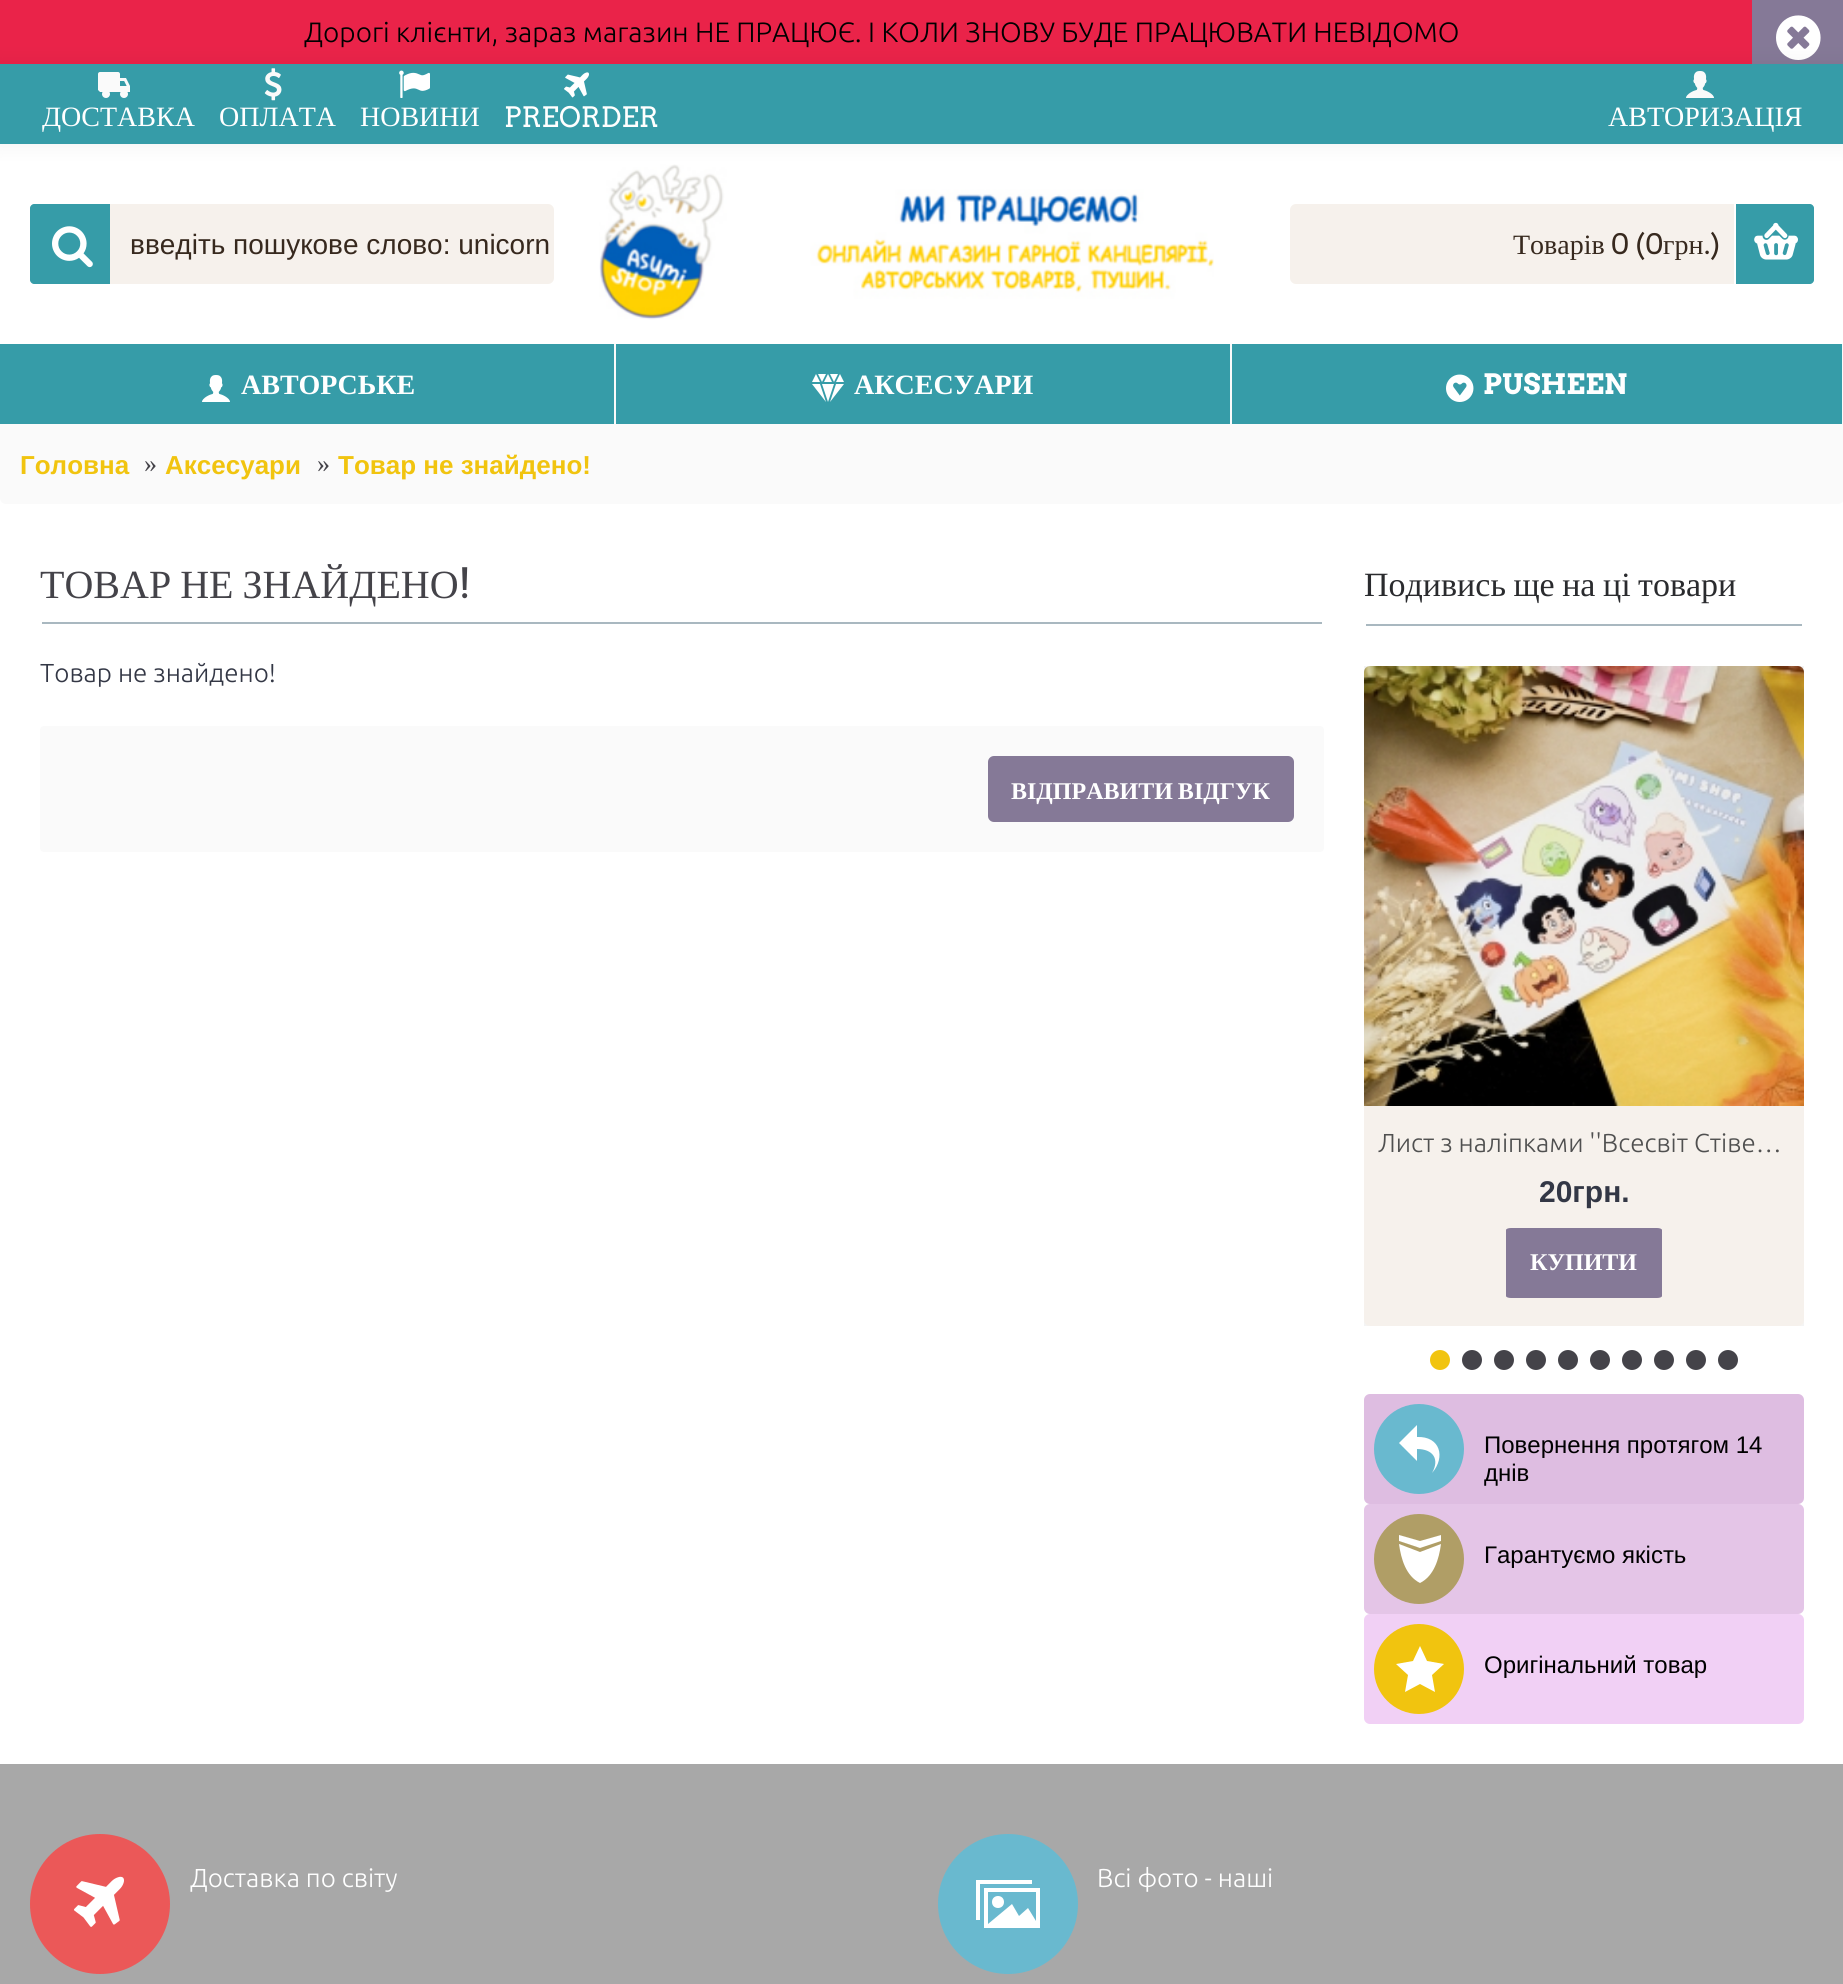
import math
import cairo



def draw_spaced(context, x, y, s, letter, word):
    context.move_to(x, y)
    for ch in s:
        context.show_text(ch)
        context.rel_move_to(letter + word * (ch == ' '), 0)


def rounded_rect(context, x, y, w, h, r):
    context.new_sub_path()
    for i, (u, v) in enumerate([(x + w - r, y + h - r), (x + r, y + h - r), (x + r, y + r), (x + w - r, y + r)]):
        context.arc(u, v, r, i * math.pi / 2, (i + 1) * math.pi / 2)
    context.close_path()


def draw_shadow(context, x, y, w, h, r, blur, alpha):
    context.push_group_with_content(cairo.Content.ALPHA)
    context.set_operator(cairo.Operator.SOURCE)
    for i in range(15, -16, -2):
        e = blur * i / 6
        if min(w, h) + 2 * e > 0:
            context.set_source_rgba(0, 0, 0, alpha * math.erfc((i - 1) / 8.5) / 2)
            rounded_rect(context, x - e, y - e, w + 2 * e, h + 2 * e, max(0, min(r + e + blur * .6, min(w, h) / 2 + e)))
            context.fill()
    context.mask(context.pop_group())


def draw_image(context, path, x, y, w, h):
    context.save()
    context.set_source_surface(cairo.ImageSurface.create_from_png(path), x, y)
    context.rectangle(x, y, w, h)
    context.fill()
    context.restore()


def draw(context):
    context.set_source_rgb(1, 1, 1)
    context.paint()
    context.set_source_rgb(234 / 255, 35 / 255, 73 / 255)
    context.rectangle(0, 0, 1752, 64)
    context.fill()
    context.set_source_rgb(133 / 255, 121 / 255, 151 / 255)
    context.rectangle(1752, 0, 91, 64)
    context.fill()
    draw_image(context, "images/1.png", 1776, 15, 45, 45)
    context.set_source_rgb(0, 0, 0)
    draw_shadow(context, -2, 62, 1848, 84, 0, 10, 0.05)
    context.set_source_rgb(54 / 255, 156 / 255, 168 / 255)
    context.rectangle(0, 64, 1843, 80)
    context.fill()
    draw_image(context, "images/2.png", 98, 72, 32, 26)
    draw_image(context, "images/3.png", 264, 68, 18, 33)
    draw_image(context, "images/4.png", 399, 70, 31, 28)
    draw_image(context, "images/5.png", 564, 72, 25, 26)
    draw_image(context, "images/6.png", 1686, 71, 28, 27)
    context.set_source_rgb(246 / 255, 241 / 255, 236 / 255)
    rounded_rect(context, 30, 204, 524, 80, 6)
    context.fill()
    context.set_source_rgb(54 / 255, 156 / 255, 168 / 255)
    context.new_path()
    context.move_to(34, 204)
    context.line_to(110, 204)
    context.line_to(110, 284)
    context.line_to(34, 284)
    context.curve_to(32, 284, 30, 282, 30, 280)
    context.line_to(30, 208)
    context.curve_to(30, 206, 32, 204, 34, 204)
    context.close_path()
    context.fill()
    draw_image(context, "images/7.png", 52, 226, 41, 42)
    draw_image(context, "images/8.png", 599, 164, 615, 156)
    context.set_source_rgb(246 / 255, 241 / 255, 236 / 255)
    rounded_rect(context, 1290, 204, 524, 80, 6)
    context.fill()
    context.set_source_rgb(54 / 255, 156 / 255, 168 / 255)
    context.new_path()
    context.move_to(1734, 204)
    context.line_to(1810, 204)
    context.curve_to(1812, 204, 1814, 206, 1814, 208)
    context.line_to(1814, 280)
    context.curve_to(1814, 282, 1812, 284, 1810, 284)
    context.line_to(1734, 284)
    context.close_path()
    context.fill()
    context.set_source_rgb(1, 1, 1)
    context.rectangle(1734, 204, 2, 80)
    context.fill()
    draw_image(context, "images/9.png", 1754, 222, 44, 38)
    context.set_source_rgb(54 / 255, 156 / 255, 168 / 255)
    context.rectangle(0, 344, 1842, 80)
    context.fill()
    draw_image(context, "images/10.png", 202, 375, 28, 27)
    context.set_source_rgb(250 / 255, 250 / 255, 250 / 255)
    context.rectangle(614, 344, 2, 80)
    context.fill()
    draw_image(context, "images/11.png", 812, 374, 32, 28)
    context.rectangle(1842, 344, 1, 80)
    context.fill()
    context.rectangle(1230, 344, 2, 80)
    context.fill()
    draw_image(context, "images/12.png", 1446, 374, 28, 28)
    context.new_path()
    context.move_to(0, 424)
    context.line_to(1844, 424)
    context.line_to(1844, 498)
    context.curve_to(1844, 501.5, 1841.5, 504, 1838, 504)
    context.line_to(6, 504)
    context.curve_to(2.5, 504, 0, 501.5, 0, 498)
    context.close_path()
    context.fill()
    context.set_source_rgb(169 / 255, 184 / 255, 192 / 255)
    context.rectangle(42, 622, 1280, 2)
    context.fill()
    context.set_source_rgb(250 / 255, 250 / 255, 250 / 255)
    rounded_rect(context, 40, 726, 1284, 126, 4)
    context.fill()
    context.set_source_rgb(133 / 255, 121 / 255, 151 / 255)
    rounded_rect(context, 988, 756, 306, 66, 6)
    context.fill()
    context.set_source_rgb(169 / 255, 184 / 255, 192 / 255)
    context.rectangle(1366, 624, 436, 2)
    context.fill()
    context.set_source_rgb(244 / 255, 244 / 255, 244 / 255)
    context.rectangle(1364, 666, 440, 660)
    context.fill()
    draw_image(context, "images/13.png", 1364, 666, 440, 440)
    context.set_source_rgb(246 / 255, 241 / 255, 236 / 255)
    context.new_path()
    context.move_to(1364, 1106)
    context.line_to(1804, 1106)
    context.line_to(1804, 1320)
    context.curve_to(1804, 1323.5, 1801.5, 1326, 1798, 1326)
    context.line_to(1370, 1326)
    context.curve_to(1366.5, 1326, 1364, 1323.5, 1364, 1320)
    context.close_path()
    context.fill()
    context.set_source_rgb(133 / 255, 121 / 255, 151 / 255)
    context.new_path()
    context.move_to(1511, 1228)
    context.line_to(1657, 1228)
    context.curve_to(1660, 1228, 1662, 1229, 1662, 1230)
    context.line_to(1662, 1296)
    context.curve_to(1662, 1297, 1660, 1298, 1657, 1298)
    context.line_to(1511, 1298)
    context.curve_to(1508, 1298, 1506, 1297, 1506, 1296)
    context.line_to(1506, 1230)
    context.curve_to(1506, 1229, 1508, 1228, 1511, 1228)
    context.close_path()
    context.fill()
    context.set_source_rgb(241 / 255, 196 / 255, 15 / 255)
    context.arc(1440, 1360, 10, 0, 2 * math.pi)
    context.fill()
    context.set_source_rgb(68 / 255, 67 / 255, 73 / 255)
    context.arc(1472, 1360, 10, 0, 2 * math.pi)
    context.fill()
    context.arc(1504, 1360, 10, 0, 2 * math.pi)
    context.fill()
    context.arc(1536, 1360, 10, 0, 2 * math.pi)
    context.fill()
    context.arc(1568, 1360, 10, 0, 2 * math.pi)
    context.fill()
    context.arc(1600, 1360, 10, 0, 2 * math.pi)
    context.fill()
    context.arc(1632, 1360, 10, 0, 2 * math.pi)
    context.fill()
    context.arc(1664, 1360, 10, 0, 2 * math.pi)
    context.fill()
    context.arc(1696, 1360, 10, 0, 2 * math.pi)
    context.fill()
    context.arc(1728, 1360, 10, 0, 2 * math.pi)
    context.fill()
    context.set_source_rgb(222 / 255, 189 / 255, 225 / 255)
    rounded_rect(context, 1364, 1394, 440, 110, 6)
    context.fill()
    context.set_source_rgb(105 / 255, 185 / 255, 207 / 255)
    context.arc(1419, 1449, 45, 0, 2 * math.pi)
    context.fill()
    context.set_source_rgb(1, 1, 1)
    context.new_path()
    context.move_to(1432, 1473)
    context.curve_to(1440, 1459, 1433, 1449, 1417, 1449)
    context.line_to(1417, 1461)
    context.line_to(1399, 1443)
    context.line_to(1417, 1425)
    context.line_to(1417, 1437)
    context.curve_to(1440, 1436, 1446, 1457, 1432, 1473)
    context.close_path()
    context.fill()
    context.set_source_rgb(228 / 255, 197 / 255, 231 / 255)
    rounded_rect(context, 1364, 1504, 440, 110, 6)
    context.fill()
    context.set_source_rgb(176 / 255, 158 / 255, 102 / 255)
    context.arc(1419, 1559, 45, 0, 2 * math.pi)
    context.fill()
    context.set_source_rgb(1, 1, 1)
    context.new_path()
    context.move_to(1441, 1535)
    context.line_to(1420, 1541)
    context.line_to(1399, 1535)
    context.line_to(1399, 1541)
    context.line_to(1420, 1548)
    context.line_to(1441, 1541)
    context.close_path()
    context.move_to(1399, 1544)
    context.curve_to(1401, 1559, 1406, 1576, 1420, 1583)
    context.curve_to(1434, 1576, 1439, 1559, 1441, 1544)
    context.line_to(1420, 1552)
    context.close_path()
    context.fill()
    context.set_source_rgb(241 / 255, 208 / 255, 245 / 255)
    rounded_rect(context, 1364, 1614, 440, 110, 6)
    context.fill()
    context.set_source_rgb(241 / 255, 196 / 255, 15 / 255)
    context.arc(1419, 1669, 45, 0, 2 * math.pi)
    context.fill()
    context.set_source_rgb(1, 1, 1)
    context.new_path()
    context.move_to(1444, 1664)
    context.line_to(1427, 1661)
    context.line_to(1420, 1646)
    context.line_to(1413, 1661)
    context.line_to(1396, 1664)
    context.line_to(1408, 1675)
    context.line_to(1405, 1692)
    context.line_to(1420, 1684)
    context.line_to(1435, 1692)
    context.line_to(1432, 1675)
    context.close_path()
    context.fill()
    context.set_source_rgb(168 / 255, 168 / 255, 168 / 255)
    context.rectangle(0, 1764, 1843, 220)
    context.fill()
    context.set_source_rgb(235 / 255, 88 / 255, 88 / 255)
    context.arc(100, 1904, 70, 0, 2 * math.pi)
    context.fill()
    draw_image(context, "images/14.png", 74, 1876, 50, 51)
    context.set_source_rgb(105 / 255, 185 / 255, 207 / 255)
    context.arc(1008, 1904, 70, 0, 2 * math.pi)
    context.fill()
    context.set_source_rgb(1, 1, 1)
    context.new_path()
    context.move_to(984, 1888)
    context.line_to(984, 1928)
    context.line_to(1040, 1928)
    context.line_to(1040, 1888)
    context.close_path()
    context.move_to(1036, 1921)
    context.line_to(1028, 1908)
    context.line_to(1019, 1916)
    context.line_to(1012, 1904)
    context.line_to(988, 1924)
    context.line_to(988, 1892)
    context.line_to(1036, 1892)
    context.close_path()
    context.move_to(992, 1902)
    context.curve_to(992, 1894, 1004, 1894, 1004, 1902)
    context.curve_to(1004, 1910, 992, 1910, 992, 1902)
    context.close_path()
    context.move_to(1032, 1880)
    context.line_to(976, 1880)
    context.line_to(976, 1920)
    context.line_to(980, 1920)
    context.line_to(980, 1884)
    context.line_to(1032, 1884)
    context.close_path()
    context.fill()
    context.select_font_face("Ubuntu Light")
    context.set_font_size(28)
    context.set_source_rgb(0, 0, 0)
    context.move_to(304, 42)
    context.show_text("Дорогі клієнти, зараз магазин НЕ ПРАЦЮЄ. І КОЛИ ЗНОВУ БУДЕ ПРАЦЮВАТИ НЕВІДОМО")
    context.select_font_face("Liberation Serif")
    context.set_source_rgb(1, 1, 1)
    context.move_to(42, 126)
    context.show_text("ДОСТАВКА")
    context.move_to(219, 126)
    context.show_text("ОПЛАТА")
    context.move_to(360, 126)
    context.show_text("НОВИНИ")
    context.select_font_face("Arvo")
    context.move_to(504, 127)
    context.show_text("PREORDER")
    context.select_font_face("Liberation Serif")
    context.move_to(1608, 126)
    context.show_text("АВТОРИЗАЦІЯ")
    context.select_font_face("Liberation Sans")
    context.set_source_rgb(55 / 255, 41 / 255, 30 / 255)
    context.move_to(130, 254)
    context.show_text("введіть пошукове слово: unicorn")
    context.select_font_face("Liberation Serif")
    context.move_to(1513, 254)
    context.show_text("Товарів")
    context.select_font_face("Arvo")
    context.move_to(1611, 254)
    context.show_text("0 (0")
    context.select_font_face("Liberation Serif")
    context.move_to(1663, 254)
    context.show_text("грн")
    context.select_font_face("Arvo")
    context.move_to(1704, 254)
    context.show_text(".)")
    context.select_font_face("Liberation Serif", cairo.FontSlant.NORMAL, cairo.FontWeight.BOLD)
    context.set_source_rgb(1, 1, 1)
    context.move_to(241, 394)
    context.show_text("АВТОРСЬКЕ")
    context.move_to(854, 394)
    context.show_text("АКСЕСУАРИ")
    context.select_font_face("Arvo", cairo.FontSlant.NORMAL, cairo.FontWeight.BOLD)
    context.move_to(1483, 394)
    context.show_text("PUSHEEN")
    context.select_font_face("Liberation Sans", cairo.FontSlant.NORMAL, cairo.FontWeight.BOLD)
    context.set_font_size(26)
    context.set_source_rgb(241 / 255, 196 / 255, 15 / 255)
    context.move_to(20, 474)
    context.show_text("Головна")
    context.select_font_face("Liberation Serif")
    context.set_source_rgb(68 / 255, 67 / 255, 73 / 255)
    context.move_to(144, 472)
    context.show_text("»")
    context.select_font_face("Liberation Sans", cairo.FontSlant.NORMAL, cairo.FontWeight.BOLD)
    context.set_source_rgb(241 / 255, 196 / 255, 15 / 255)
    context.move_to(165, 474)
    context.show_text("Аксесуари")
    context.select_font_face("Liberation Serif")
    context.set_source_rgb(68 / 255, 67 / 255, 73 / 255)
    context.move_to(317, 472)
    context.show_text("»")
    context.select_font_face("Liberation Sans", cairo.FontSlant.NORMAL, cairo.FontWeight.BOLD)
    context.set_source_rgb(241 / 255, 196 / 255, 15 / 255)
    context.move_to(338, 474)
    context.show_text("Товар не знайдено!")
    context.select_font_face("Liberation Serif")
    context.set_font_size(40)
    context.set_source_rgb(68 / 255, 67 / 255, 73 / 255)
    draw_spaced(context, 40, 598, "ТОВАР НЕ ЗНАЙДЕНО", 0, -1)
    context.select_font_face("Arvo")
    context.move_to(458, 598)
    context.show_text("!")
    context.select_font_face("Ubuntu Light")
    context.set_font_size(26)
    context.set_source_rgb(51 / 255, 55 / 255, 69 / 255)
    context.move_to(40, 682)
    context.show_text("Товар не знайдено!")
    context.select_font_face("Liberation Serif", cairo.FontSlant.NORMAL, cairo.FontWeight.BOLD)
    context.set_font_size(24)
    context.set_source_rgb(1, 1, 1)
    draw_spaced(context, 1011, 799, "ВІДПРАВИТИ ВІДГУК", 0, -1)
    context.select_font_face("Liberation Serif")
    context.set_font_size(34)
    context.set_source_rgb(42 / 255, 43 / 255, 46 / 255)
    draw_spaced(context, 1364, 596, "Подивись ще на ці товари", 0, -1)
    context.select_font_face("Ubuntu Light")
    context.set_font_size(26)
    context.set_source_rgb(80 / 255, 80 / 255, 80 / 255)
    context.move_to(1378, 1152)
    context.show_text("Лист з наліпками ''Всесвіт Стіве…")
    context.select_font_face("Liberation Sans", cairo.FontSlant.NORMAL, cairo.FontWeight.BOLD)
    context.set_font_size(30)
    context.set_source_rgb(51 / 255, 55 / 255, 69 / 255)
    context.move_to(1539, 1202)
    context.show_text("20грн.")
    context.select_font_face("Liberation Serif", cairo.FontSlant.NORMAL, cairo.FontWeight.BOLD)
    context.set_font_size(24)
    context.set_source_rgb(1, 1, 1)
    context.move_to(1530, 1270)
    context.show_text("КУПИТИ")
    context.select_font_face("Liberation Sans")
    context.set_source_rgb(0, 0, 0)
    context.move_to(1484, 1453)
    context.show_text("Повернення протягом 14")
    context.move_to(1484, 1481)
    context.show_text("днів")
    context.move_to(1484, 1563)
    context.show_text("Гарантуємо якість")
    context.move_to(1484, 1673)
    context.show_text("Оригінальний товар")
    context.select_font_face("Ubuntu Light")
    context.set_font_size(26)
    context.set_source_rgb(1, 1, 1)
    context.move_to(190, 1887)
    context.show_text("Доставка по світу")
    context.move_to(1097, 1887)
    context.show_text("Всі фото - наші")


surface = cairo.ImageSurface(cairo.Format.RGB24, 1843, 1984)
context = cairo.Context(surface)
options = cairo.FontOptions()
options.set_hint_metrics(cairo.HintMetrics.OFF)
options.set_hint_style(cairo.HintStyle.NONE)
context.set_font_options(options)
context.set_miter_limit(4)
draw(context)
surface.write_to_png("out.png")
